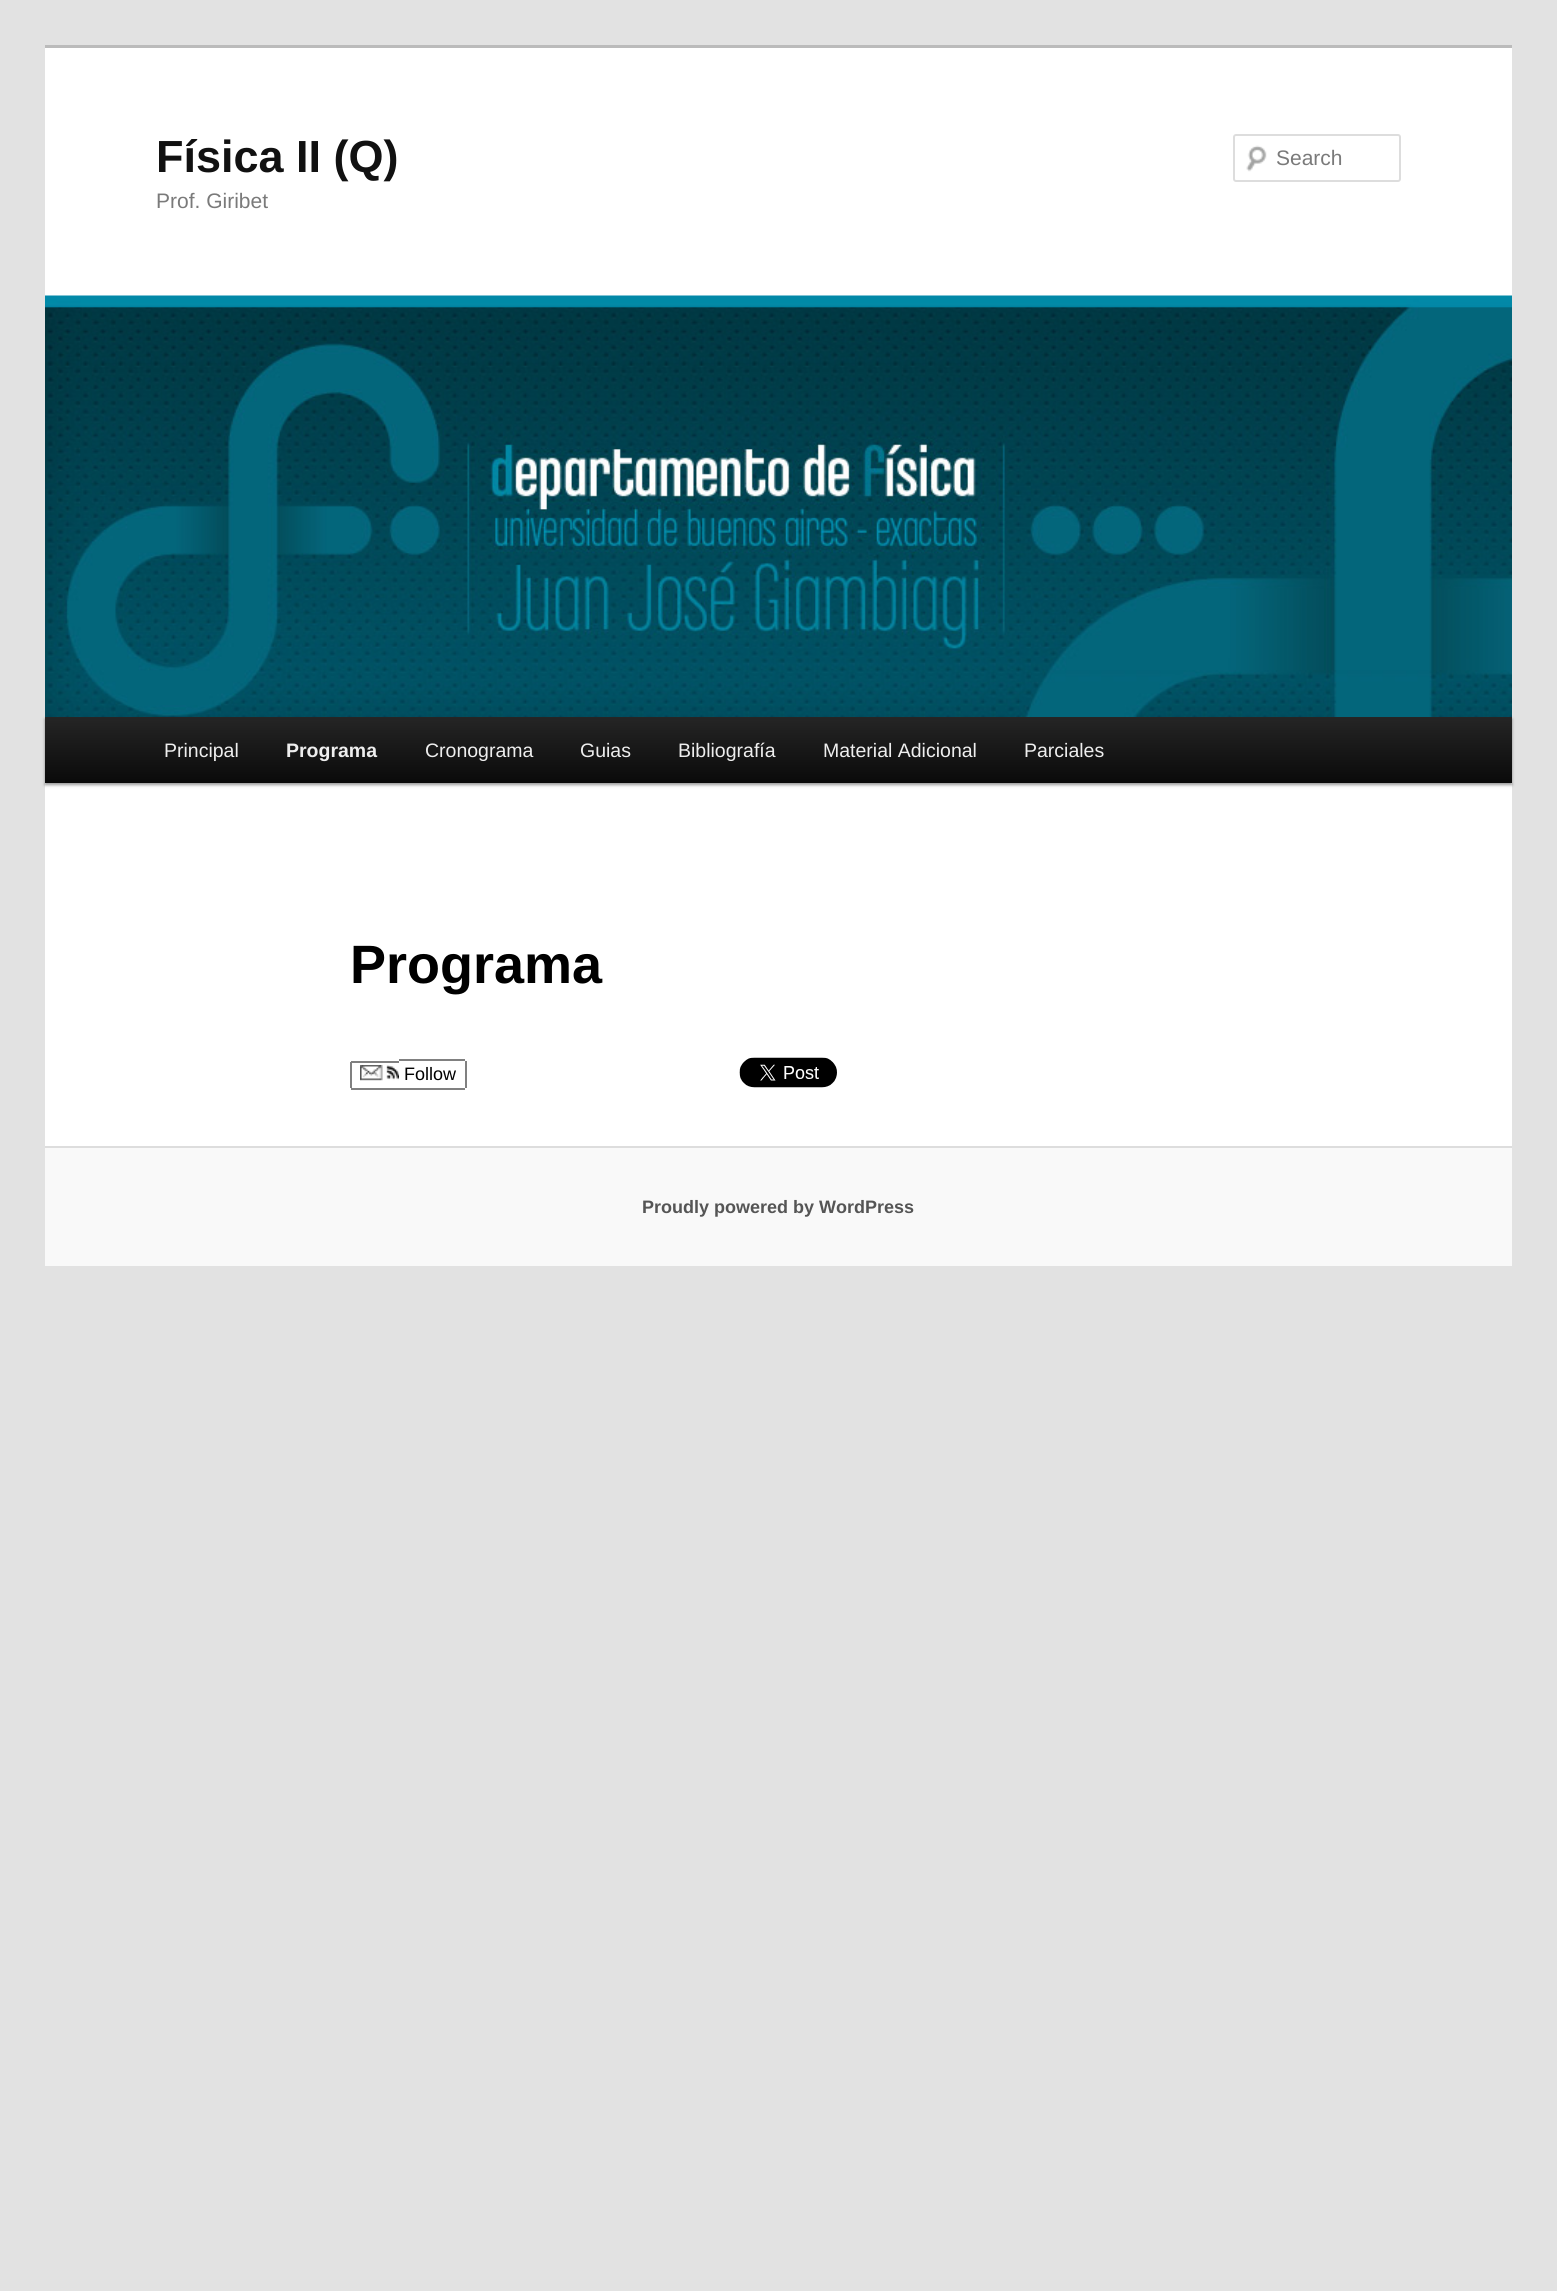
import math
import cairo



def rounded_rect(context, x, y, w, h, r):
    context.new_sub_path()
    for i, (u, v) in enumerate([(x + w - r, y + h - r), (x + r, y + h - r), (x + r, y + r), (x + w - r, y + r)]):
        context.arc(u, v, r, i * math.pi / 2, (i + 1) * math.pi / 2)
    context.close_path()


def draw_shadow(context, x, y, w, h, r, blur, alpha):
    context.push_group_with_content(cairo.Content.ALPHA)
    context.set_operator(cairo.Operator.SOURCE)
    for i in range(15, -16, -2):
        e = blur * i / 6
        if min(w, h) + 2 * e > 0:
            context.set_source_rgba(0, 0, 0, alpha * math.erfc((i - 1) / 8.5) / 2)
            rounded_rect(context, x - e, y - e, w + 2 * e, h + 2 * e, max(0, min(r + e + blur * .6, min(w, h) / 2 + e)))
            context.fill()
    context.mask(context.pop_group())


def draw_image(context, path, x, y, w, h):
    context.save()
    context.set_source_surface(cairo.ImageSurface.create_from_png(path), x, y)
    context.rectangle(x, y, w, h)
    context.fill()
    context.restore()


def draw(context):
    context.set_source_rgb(226 / 255, 226 / 255, 226 / 255)
    context.paint()
    context.set_source_rgb(1, 1, 1)
    context.rectangle(45, 48, 1467, 1098)
    context.fill()
    context.set_source_rgb(187 / 255, 187 / 255, 187 / 255)
    context.rectangle(45, 45, 1467, 3)
    context.fill()
    draw_image(context, "images/1.png", 1246, 145, 21, 27)
    rounded_rect(context, 1234, 135, 166, 46, 2)
    context.set_source_rgb(221 / 255, 221 / 255, 221 / 255)
    context.stroke()
    context.set_source_rgb(0, 0, 0)
    draw_shadow(context, 45, 719, 1467, 66, 0, 1.5, 0.4)
    draw_image(context, "images/2.png", 45, 295, 1467, 422)
    gradient = cairo.LinearGradient(779, 717, 779, 783)
    gradient.add_color_stop_rgba(0, 37 / 255, 37 / 255, 37 / 255, 1)
    gradient.add_color_stop_rgba(1, 10 / 255, 10 / 255, 10 / 255, 1)
    context.set_source(gradient)
    context.rectangle(45, 717, 1467, 66)
    context.fill()
    draw_image(context, "images/3.png", 360, 1065, 39, 16)
    context.set_source_rgb(128 / 255, 128 / 255, 128 / 255)
    context.rectangle(351, 1061, 48, 2)
    context.fill()
    context.rectangle(351, 1088, 114, 2)
    context.fill()
    context.rectangle(350, 1062, 2, 26)
    context.fill()
    context.rectangle(399, 1059, 66, 2)
    context.fill()
    context.rectangle(465, 1061, 2, 27)
    context.fill()
    draw_image(context, "images/4.png", 739, 1057, 98, 31)
    context.set_source_rgb(249 / 255, 249 / 255, 249 / 255)
    context.rectangle(45, 1148, 1467, 118)
    context.fill()
    context.set_source_rgb(221 / 255, 221 / 255, 221 / 255)
    context.rectangle(45, 1146, 1467, 2)
    context.fill()
    context.select_font_face("Liberation Sans", cairo.FontSlant.NORMAL, cairo.FontWeight.BOLD)
    context.set_font_size(45)
    context.set_source_rgb(17 / 255, 17 / 255, 17 / 255)
    context.move_to(156, 172)
    context.show_text("Física II (Q)")
    context.select_font_face("Liberation Sans")
    context.set_font_size(21)
    context.set_source_rgb(122 / 255, 122 / 255, 122 / 255)
    context.move_to(156, 208)
    context.show_text("Prof. Giribet")
    context.move_to(1276, 165)
    context.show_text("Search")
    context.set_font_size(19.5)
    context.set_source_rgb(238 / 255, 238 / 255, 238 / 255)
    context.move_to(164, 757)
    context.show_text("Principal")
    context.select_font_face("Liberation Sans", cairo.FontSlant.NORMAL, cairo.FontWeight.BOLD)
    context.move_to(286, 757)
    context.show_text("Programa")
    context.select_font_face("Liberation Sans")
    context.move_to(425, 757)
    context.show_text("Cronograma")
    context.move_to(580, 757)
    context.show_text("Guias")
    context.move_to(678, 757)
    context.show_text("Bibliografía")
    context.move_to(823, 757)
    context.show_text("Material Adicional")
    context.move_to(1024, 757)
    context.show_text("Parciales")
    context.select_font_face("Liberation Sans", cairo.FontSlant.NORMAL, cairo.FontWeight.BOLD)
    context.set_font_size(54)
    context.set_source_rgb(0, 0, 0)
    context.move_to(350, 983)
    context.show_text("Programa")
    context.select_font_face("Liberation Sans")
    context.set_font_size(18)
    context.move_to(404, 1080)
    context.show_text("Follow")
    context.select_font_face("Liberation Sans", cairo.FontSlant.NORMAL, cairo.FontWeight.BOLD)
    context.set_source_rgb(85 / 255, 85 / 255, 85 / 255)
    context.move_to(642, 1213)
    context.show_text("Proudly powered by WordPress")


surface = cairo.ImageSurface(cairo.Format.RGB24, 1557, 2291)
context = cairo.Context(surface)
options = cairo.FontOptions()
options.set_hint_metrics(cairo.HintMetrics.OFF)
options.set_hint_style(cairo.HintStyle.NONE)
context.set_font_options(options)
context.set_miter_limit(4)
draw(context)
surface.write_to_png("out.png")
